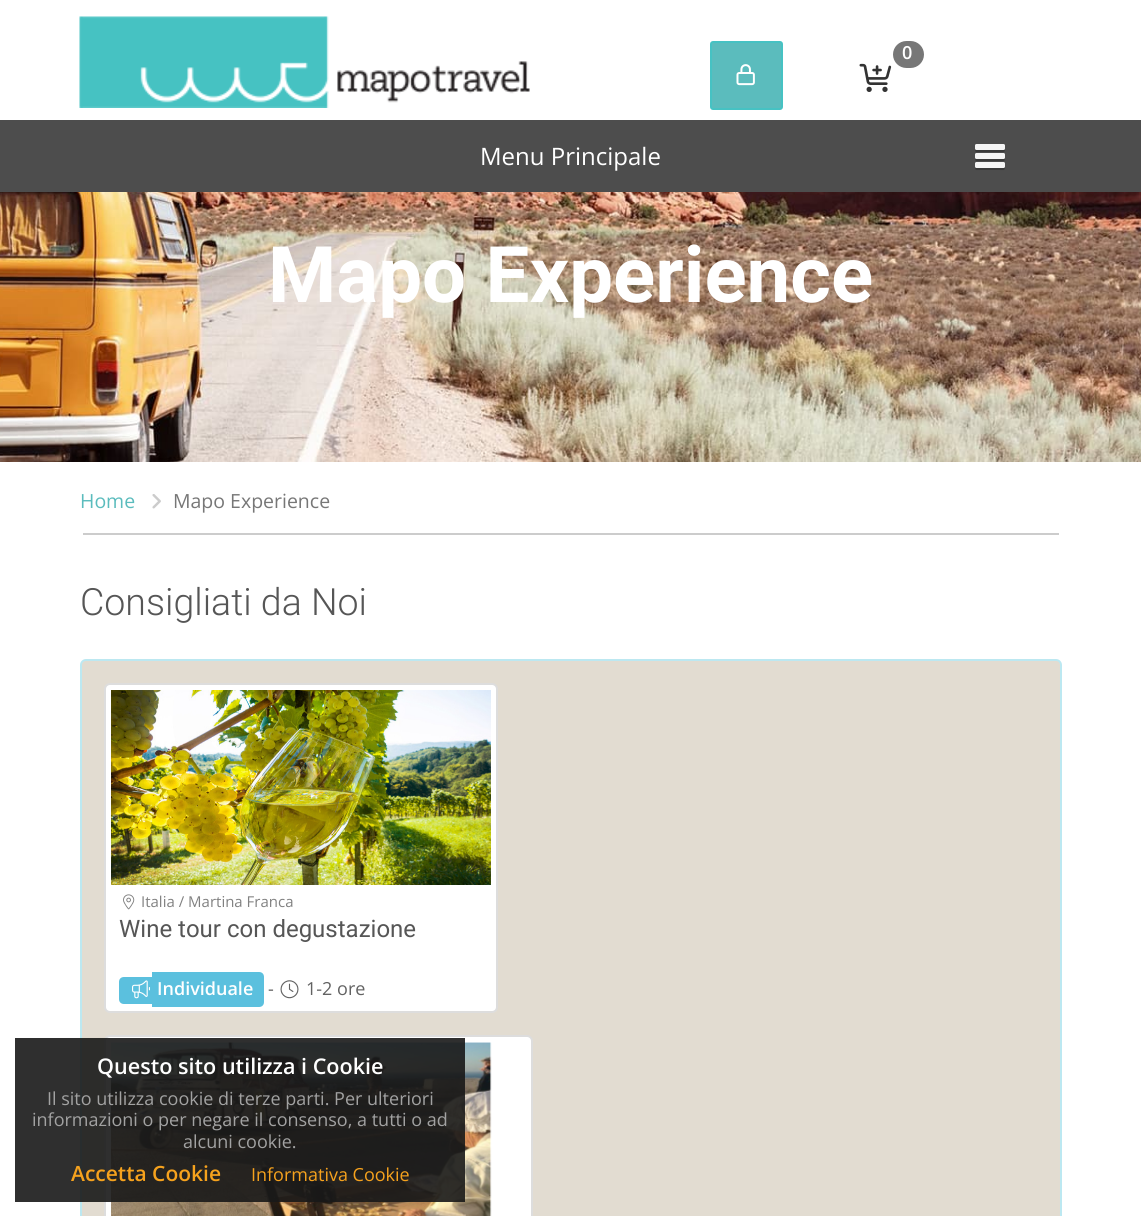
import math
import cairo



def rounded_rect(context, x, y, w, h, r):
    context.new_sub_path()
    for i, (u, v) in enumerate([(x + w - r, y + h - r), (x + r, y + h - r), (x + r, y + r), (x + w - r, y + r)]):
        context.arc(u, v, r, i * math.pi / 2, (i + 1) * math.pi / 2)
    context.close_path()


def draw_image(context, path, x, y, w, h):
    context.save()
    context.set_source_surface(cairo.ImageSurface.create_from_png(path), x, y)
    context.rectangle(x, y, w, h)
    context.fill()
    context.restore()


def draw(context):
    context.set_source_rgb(1, 1, 1)
    context.paint()
    context.set_source_rgb(77 / 255, 77 / 255, 77 / 255)
    context.rectangle(0, 120, 1141, 72)
    context.fill()
    draw_image(context, "images/1.png", 79, 16, 451, 92)
    context.set_source_rgb(91 / 255, 188 / 255, 189 / 255)
    rounded_rect(context, 711, 42, 71, 67, 2)
    context.fill_preserve()
    context.set_source_rgb(70 / 255, 194 / 255, 195 / 255)
    context.stroke()
    draw_image(context, "images/2.png", 736, 64, 19, 22)
    context.set_source_rgb(119 / 255, 119 / 255, 119 / 255)
    rounded_rect(context, 893, 41, 31, 27, 13.5)
    context.fill()
    draw_image(context, "images/3.png", 859, 63, 33, 29)
    context.set_source_rgb(58 / 255, 58 / 255, 58 / 255)
    context.new_path()
    context.move_to(975, 148.5)
    context.curve_to(975, 153, 976, 152, 981, 152)
    context.line_to(999, 152)
    context.curve_to(1004, 152, 1005, 153, 1005, 148.5)
    context.curve_to(1005, 149.5, 1004.5, 150, 1003.5, 150)
    context.line_to(976.5, 150)
    context.curve_to(975.5, 150, 975, 149.5, 975, 148.5)
    context.close_path()
    context.fill()
    context.set_source_rgb(245 / 255, 245 / 255, 245 / 255)
    rounded_rect(context, 975, 144, 30, 6, 1.5)
    context.fill()
    context.set_source_rgb(58 / 255, 58 / 255, 58 / 255)
    context.new_path()
    context.move_to(975, 157.5)
    context.curve_to(975, 162, 976, 161, 981, 161)
    context.line_to(999, 161)
    context.curve_to(1004, 161, 1005, 162, 1005, 157.5)
    context.curve_to(1005, 158.5, 1004.5, 159, 1003.5, 159)
    context.line_to(976.5, 159)
    context.curve_to(975.5, 159, 975, 158.5, 975, 157.5)
    context.close_path()
    context.fill()
    context.set_source_rgb(245 / 255, 245 / 255, 245 / 255)
    rounded_rect(context, 975, 153, 30, 6, 1.5)
    context.fill()
    context.set_source_rgb(58 / 255, 58 / 255, 58 / 255)
    context.new_path()
    context.move_to(975, 166.5)
    context.curve_to(975, 171, 976, 170, 981, 170)
    context.line_to(999, 170)
    context.curve_to(1004, 170, 1005, 171, 1005, 166.5)
    context.curve_to(1005, 167.5, 1004.5, 168, 1003.5, 168)
    context.line_to(976.5, 168)
    context.curve_to(975.5, 168, 975, 167.5, 975, 166.5)
    context.close_path()
    context.fill()
    context.set_source_rgb(245 / 255, 245 / 255, 245 / 255)
    rounded_rect(context, 975, 162, 30, 6, 1.5)
    context.fill()
    draw_image(context, "images/4.png", 0, 192, 1141, 270)
    context.set_source_rgb(204 / 255, 204 / 255, 204 / 255)
    context.rectangle(83, 533, 976, 2)
    context.fill()
    draw_image(context, "images/5.png", 152, 494, 9, 15)
    context.set_source_rgb(226 / 255, 220 / 255, 209 / 255)
    rounded_rect(context, 81, 660, 980, 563, 5)
    context.fill_preserve()
    context.set_source_rgb(188 / 255, 232 / 255, 241 / 255)
    context.stroke()
    context.set_source_rgb(1, 1, 1)
    rounded_rect(context, 105, 684, 392, 328, 5)
    context.fill_preserve()
    context.set_source_rgb(221 / 255, 221 / 255, 221 / 255)
    context.stroke()
    draw_image(context, "images/6.png", 111, 690, 380, 195)
    draw_image(context, "images/7.png", 123, 894, 12, 16)
    context.set_source_rgb(91 / 255, 192 / 255, 222 / 255)
    context.new_path()
    context.move_to(124, 977)
    context.line_to(152, 977)
    context.line_to(152, 1004)
    context.line_to(124, 1004)
    context.curve_to(121, 1004, 119, 1002, 119, 999)
    context.line_to(119, 982)
    context.curve_to(119, 979, 121, 977, 124, 977)
    context.close_path()
    context.fill()
    context.new_path()
    context.move_to(152, 972)
    context.line_to(259, 972)
    context.curve_to(262, 972, 264, 974, 264, 977)
    context.line_to(264, 1002)
    context.curve_to(264, 1005, 262, 1007, 259, 1007)
    context.line_to(152, 1007)
    context.close_path()
    context.fill()
    draw_image(context, "images/8.png", 132, 980, 18, 19)
    draw_image(context, "images/9.png", 280, 980, 19, 19)
    context.set_source_rgb(1, 1, 1)
    rounded_rect(context, 105, 1036, 427, 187, 5)
    context.fill_preserve()
    context.set_source_rgb(221 / 255, 221 / 255, 221 / 255)
    context.stroke()
    draw_image(context, "images/10.png", 111, 1042, 381, 174)
    context.set_source_rgba(25 / 255, 25 / 255, 25 / 255, 0.9)
    context.rectangle(15, 1038, 450, 164)
    context.fill()
    context.select_font_face("Open Sans SemiBold")
    context.set_font_size(18)
    context.set_source_rgb(1, 1, 1)
    context.move_to(902, 59)
    context.show_text("0")
    context.select_font_face("Open Sans")
    context.set_font_size(24)
    context.move_to(480, 165)
    context.show_text("Menu Principale")
    context.select_font_face("Roboto", cairo.FontSlant.NORMAL, cairo.FontWeight.BOLD)
    context.set_font_size(78)
    context.move_to(268, 302)
    context.show_text("Mapo Experience")
    context.select_font_face("Open Sans")
    context.set_font_size(19.5)
    context.set_source_rgb(91 / 255, 188 / 255, 189 / 255)
    context.move_to(80, 508)
    context.show_text("Home")
    context.set_source_rgb(119 / 255, 119 / 255, 119 / 255)
    context.move_to(173, 508)
    context.show_text("Mapo Experience")
    context.select_font_face("Roboto Light")
    context.set_font_size(37.5)
    context.set_source_rgb(86 / 255, 86 / 255, 86 / 255)
    context.move_to(80, 615)
    context.show_text("Consigliati da Noi")
    context.select_font_face("Open Sans")
    context.set_font_size(15)
    context.set_source_rgb(129 / 255, 129 / 255, 129 / 255)
    context.move_to(141, 907)
    context.show_text("Italia / Martina Franca")
    context.select_font_face("Roboto")
    context.set_font_size(24)
    context.set_source_rgb(86 / 255, 86 / 255, 86 / 255)
    context.move_to(119, 937)
    context.show_text("Wine tour con degustazione")
    context.select_font_face("Open Sans SemiBold")
    context.set_font_size(18)
    context.set_source_rgb(1, 1, 1)
    context.move_to(157, 995)
    context.show_text("Individuale")
    context.select_font_face("Open Sans")
    context.set_source_rgb(98 / 255, 98 / 255, 98 / 255)
    context.move_to(268, 995)
    context.show_text("-")
    context.move_to(306, 995)
    context.show_text("1-2 ore")
    context.select_font_face("Open Sans SemiBold")
    context.set_font_size(21.6)
    context.set_source_rgb(1, 1, 1)
    context.move_to(97, 1074)
    context.show_text("Questo sito utilizza i Cookie")
    context.select_font_face("Open Sans")
    context.set_font_size(18)
    context.set_source_rgb(162 / 255, 162 / 255, 162 / 255)
    context.move_to(47, 1105)
    context.show_text("Il sito utilizza cookie di terze parti. Per ulteriori")
    context.move_to(32, 1126)
    context.show_text("informazioni o per negare il consenso, a tutti o ad")
    context.move_to(183, 1148)
    context.show_text("alcuni cookie.")
    context.select_font_face("Open Sans SemiBold")
    context.set_font_size(21)
    context.set_source_rgb(246 / 255, 162 / 255, 29 / 255)
    context.move_to(71, 1181)
    context.show_text("Accetta Cookie")
    context.select_font_face("Open Sans")
    context.set_font_size(18)
    context.move_to(251, 1181)
    context.show_text("Informativa Cookie")


surface = cairo.ImageSurface(cairo.Format.RGB24, 1141, 1216)
context = cairo.Context(surface)
options = cairo.FontOptions()
options.set_hint_metrics(cairo.HintMetrics.OFF)
options.set_hint_style(cairo.HintStyle.NONE)
context.set_font_options(options)
context.set_miter_limit(4)
draw(context)
surface.write_to_png("out.png")
